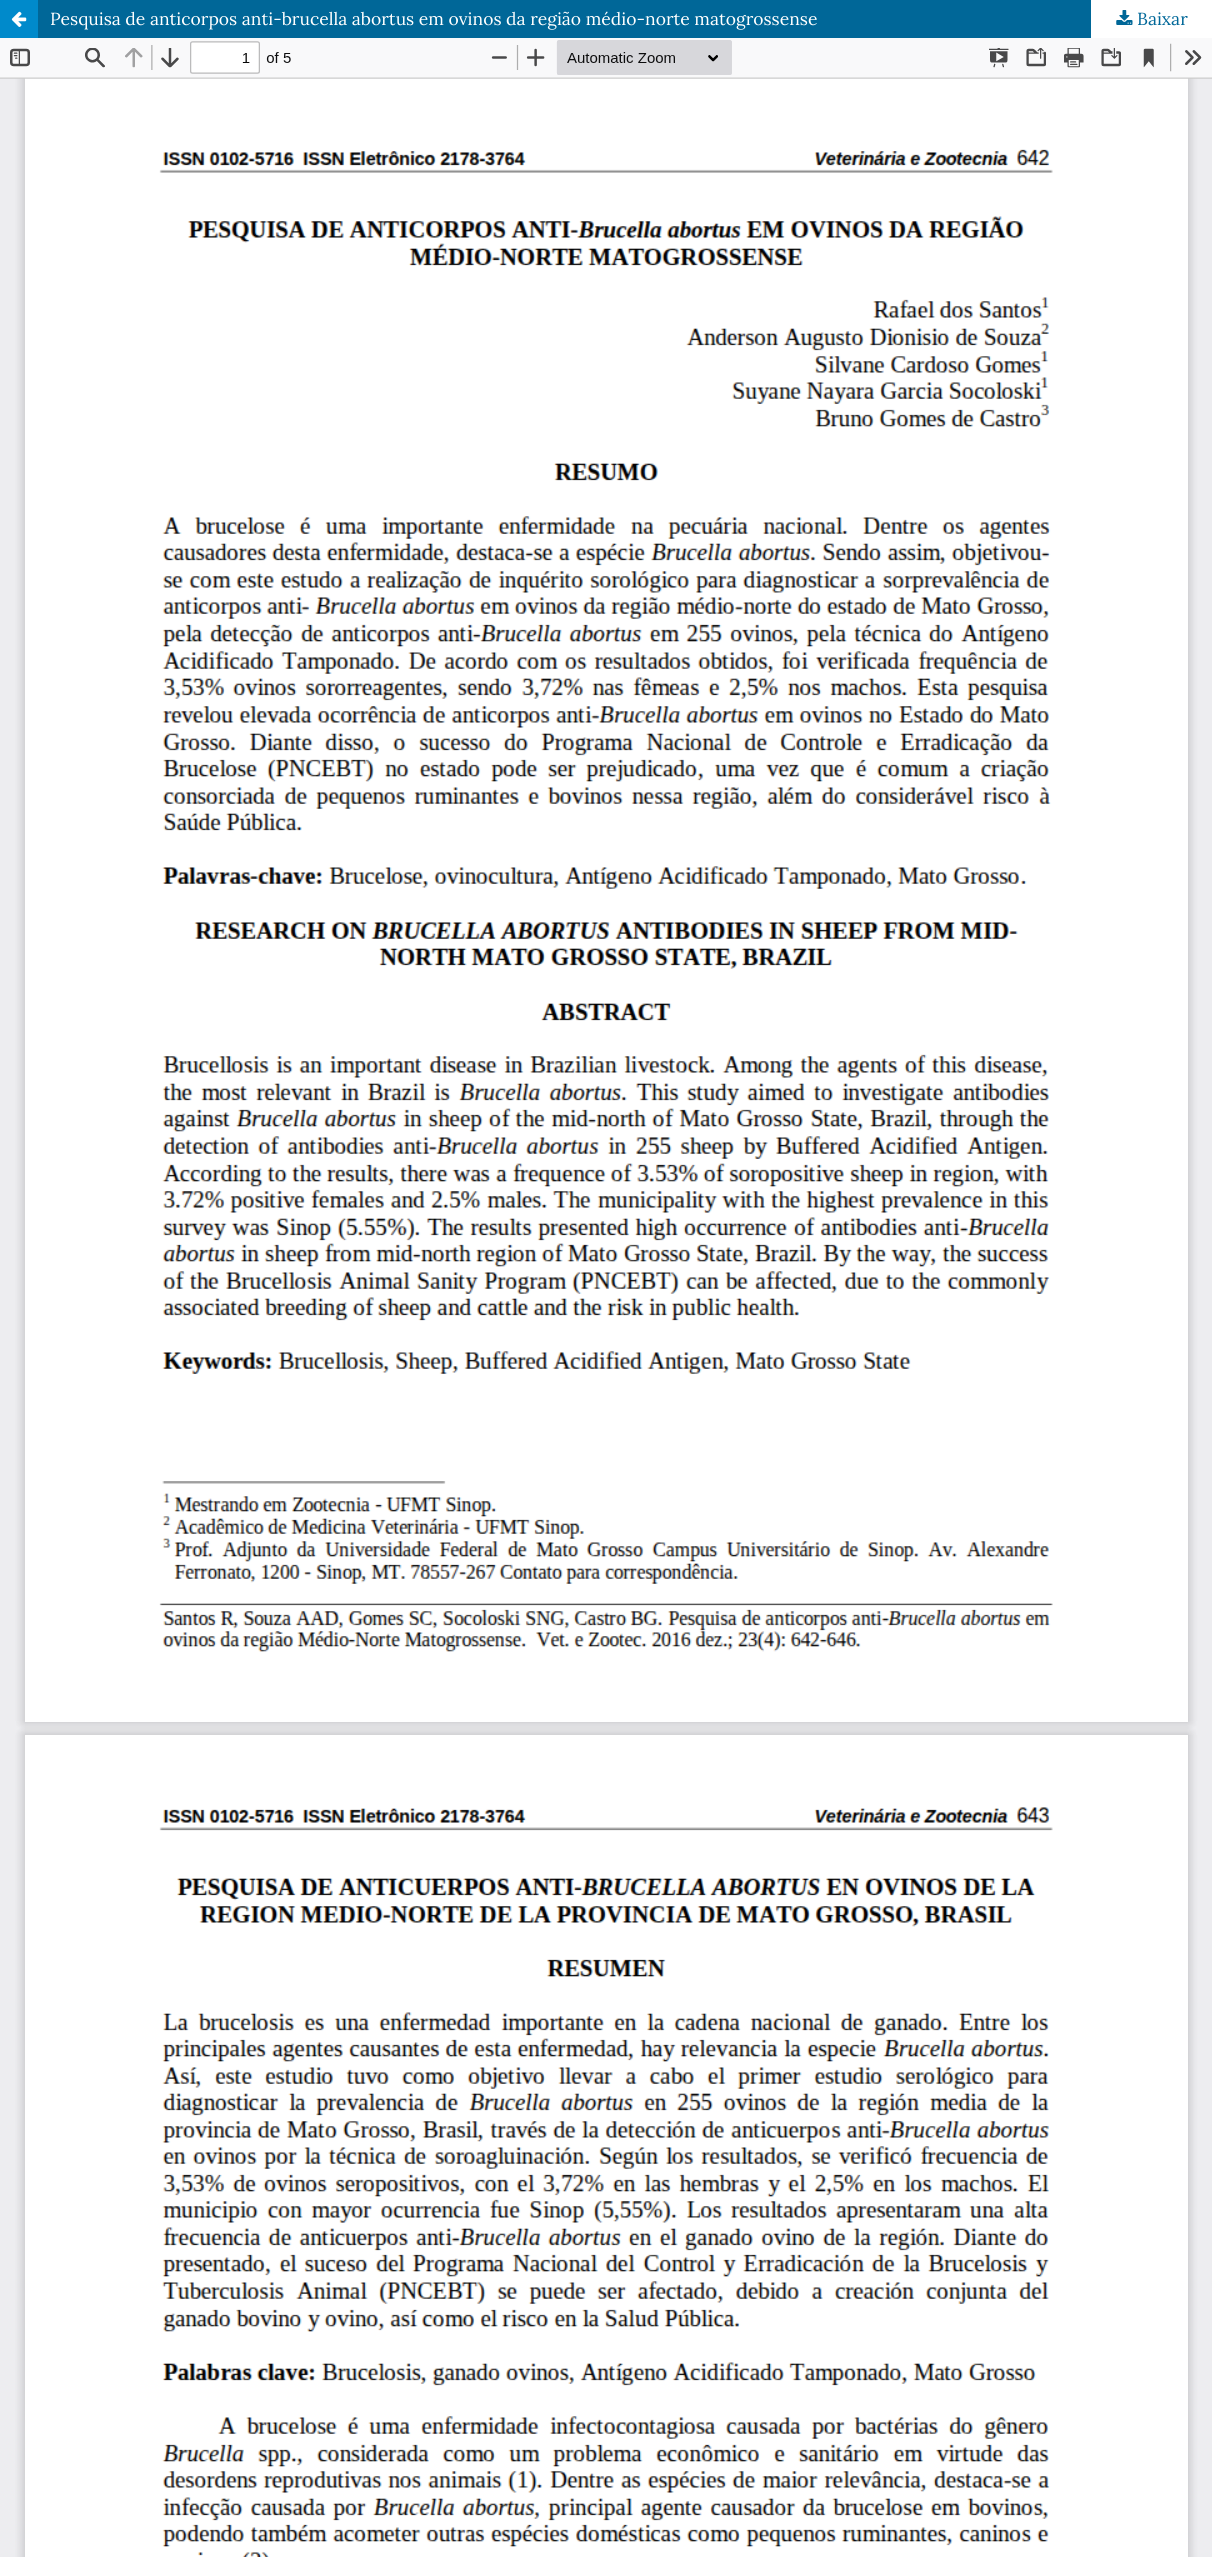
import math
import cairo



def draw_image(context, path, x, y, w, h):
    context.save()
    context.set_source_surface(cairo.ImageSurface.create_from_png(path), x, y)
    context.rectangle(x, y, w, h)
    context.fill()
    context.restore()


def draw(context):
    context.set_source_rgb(1, 1, 1)
    context.paint()
    context.set_source_rgb(0, 103 / 255, 152 / 255)
    context.rectangle(38, 0, 1053, 38)
    context.fill()
    context.set_source_rgb(0, 138 / 255, 203 / 255)
    context.rectangle(0, 0, 38, 38)
    context.fill()
    draw_image(context, "images/1.png", 11, 11, 16, 16)
    draw_image(context, "images/2.png", 1116, 10, 17, 15)
    draw_image(context, "images/3.png", 0, 38, 1212, 2519)
    context.select_font_face("Lora")
    context.set_font_size(17.5)
    context.set_source_rgb(1, 1, 1)
    context.move_to(50, 25)
    context.show_text("Pesquisa de anticorpos anti-brucella abortus em ovinos da região médio-norte matogrossense")
    context.set_source_rgb(0, 103 / 255, 152 / 255)
    context.move_to(1137, 25)
    context.show_text("Baixar")


surface = cairo.ImageSurface(cairo.Format.RGB24, 1212, 2557)
context = cairo.Context(surface)
options = cairo.FontOptions()
options.set_hint_metrics(cairo.HintMetrics.OFF)
options.set_hint_style(cairo.HintStyle.NONE)
context.set_font_options(options)
context.set_miter_limit(4)
draw(context)
surface.write_to_png("out.png")
